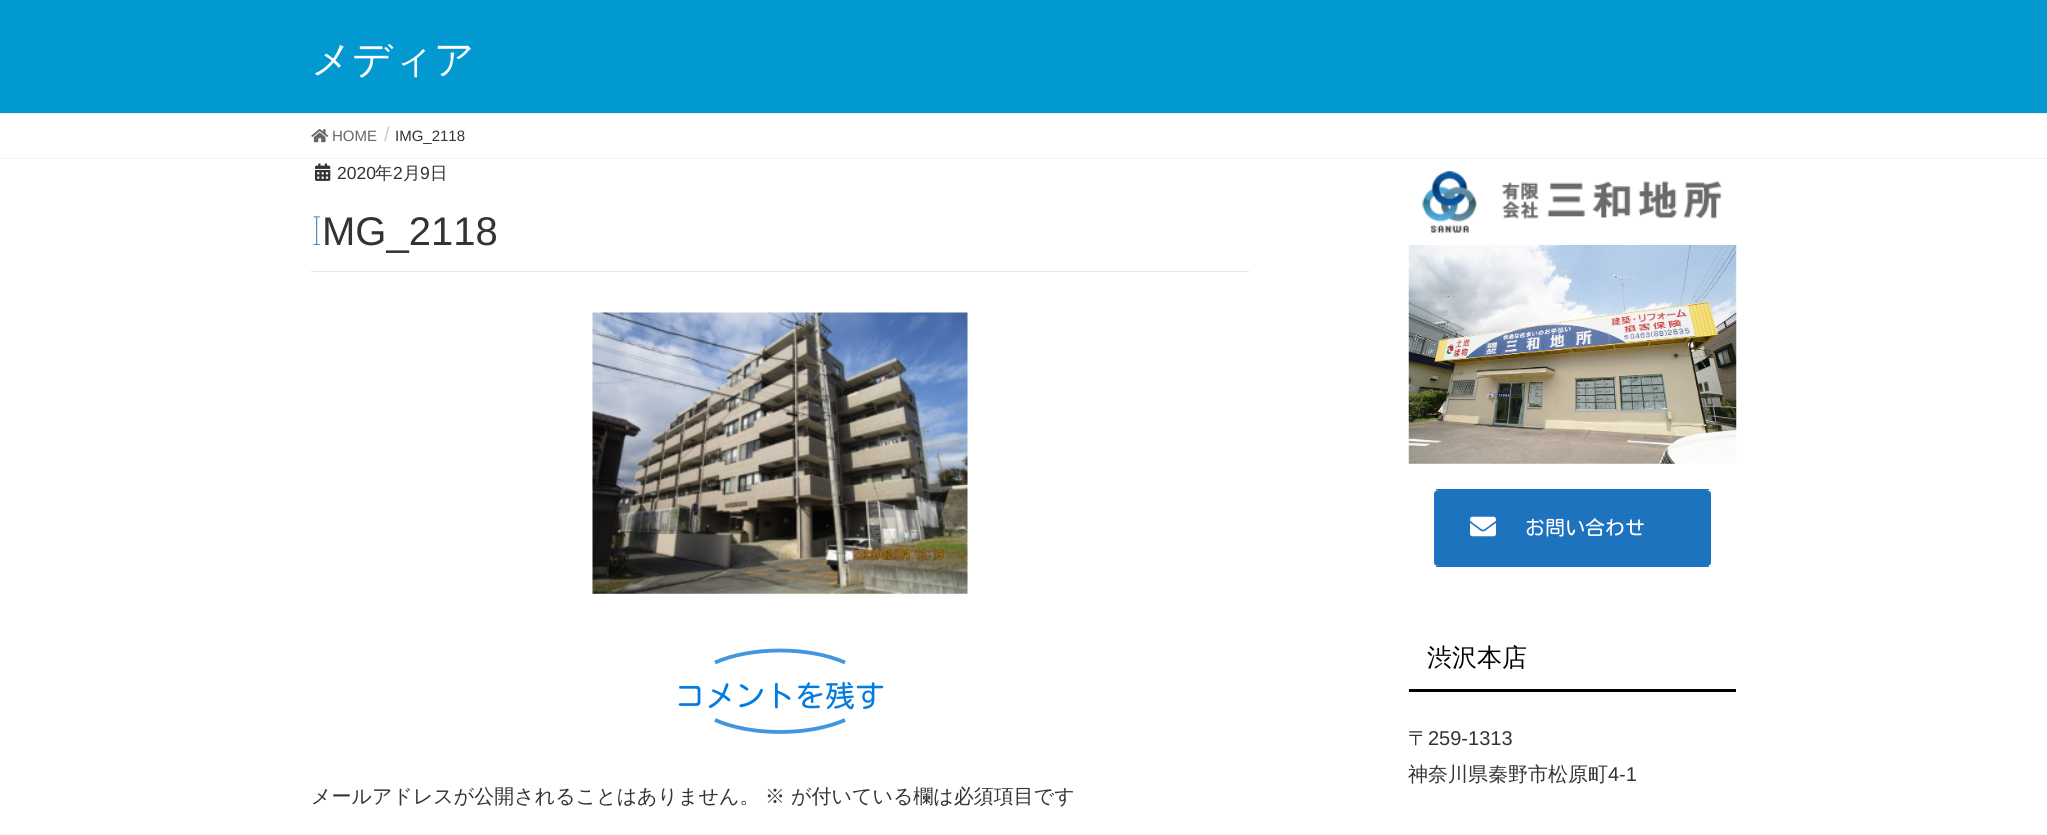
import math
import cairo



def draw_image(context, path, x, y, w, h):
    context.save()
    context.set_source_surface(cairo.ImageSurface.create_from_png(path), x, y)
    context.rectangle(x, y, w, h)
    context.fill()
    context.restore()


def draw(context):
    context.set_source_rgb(1, 1, 1)
    context.paint()
    context.set_source_rgb(1 / 255, 153 / 255, 208 / 255)
    context.rectangle(0, 0, 2047, 113)
    context.fill()
    context.set_source_rgb(238 / 255, 238 / 255, 238 / 255)
    context.rectangle(0, 113, 2047, 1)
    context.fill()
    context.set_source_rgb(243 / 255, 243 / 255, 243 / 255)
    context.rectangle(0, 158, 2047, 1)
    context.fill()
    draw_image(context, "images/1.png", 311, 129, 18, 14)
    context.set_source_rgb(229 / 255, 229 / 255, 229 / 255)
    context.rectangle(311, 271, 938, 1)
    context.fill()
    draw_image(context, "images/2.png", 315, 163, 16, 18)
    draw_image(context, "images/3.png", 592, 312, 376, 282)
    context.new_path()
    context.move_to(715, 662.5)
    context.curve_to(751.5, 646.5, 808.5, 646.5, 845, 662.5)
    context.set_source_rgb(65 / 255, 150 / 255, 221 / 255)
    context.set_line_width(3.8)
    context.stroke()
    context.new_path()
    context.move_to(845, 720)
    context.curve_to(808.5, 736, 751.5, 736, 715, 720)
    context.stroke()
    draw_image(context, "images/4.png", 1422, 171, 300, 62)
    draw_image(context, "images/5.png", 1408, 245, 329, 219)
    context.set_source_rgb(30 / 255, 115 / 255, 190 / 255)
    context.new_path()
    context.move_to(1439, 490)
    context.line_to(1706, 490)
    context.curve_to(1709, 490, 1711, 492, 1711, 494)
    context.line_to(1711, 562)
    context.curve_to(1711, 565, 1709, 566, 1706, 566)
    context.line_to(1439, 566)
    context.curve_to(1436, 566, 1434, 565, 1434, 562)
    context.line_to(1434, 494)
    context.curve_to(1434, 492, 1436, 490, 1439, 490)
    context.close_path()
    context.fill()
    context.rectangle(1436, 489, 273, 1)
    context.fill()
    context.rectangle(1436, 566, 273, 1)
    context.fill()
    draw_image(context, "images/6.png", 1470, 516, 26, 21)
    context.set_source_rgb(0, 0, 0)
    context.rectangle(1409, 689, 327, 3)
    context.fill()
    context.select_font_face("WenQuanYi Zen Hei Medium")
    context.set_font_size(40)
    context.set_source_rgb(1, 1, 1)
    context.move_to(311, 73)
    context.show_text("メディア")
    context.select_font_face("Liberation Sans")
    context.set_font_size(15)
    context.set_source_rgb(102 / 255, 102 / 255, 102 / 255)
    context.move_to(332, 141)
    context.show_text("HOME")
    context.set_font_size(20)
    context.set_source_rgb(204 / 255, 204 / 255, 204 / 255)
    context.move_to(384, 141)
    context.show_text("/")
    context.set_font_size(15)
    context.set_source_rgb(51 / 255, 51 / 255, 51 / 255)
    context.move_to(395, 141)
    context.show_text("IMG_2118")
    context.set_font_size(17.5)
    context.move_to(337, 179)
    context.show_text("2020")
    context.select_font_face("WenQuanYi Zen Hei Medium")
    context.move_to(375, 179)
    context.show_text("年")
    context.select_font_face("Liberation Sans")
    context.move_to(393, 179)
    context.show_text("2")
    context.select_font_face("WenQuanYi Zen Hei Medium")
    context.move_to(403, 179)
    context.show_text("月")
    context.select_font_face("Liberation Sans")
    context.move_to(420, 179)
    context.show_text("9")
    context.select_font_face("WenQuanYi Zen Hei Medium")
    context.move_to(430, 179)
    context.show_text("日")
    context.select_font_face("Noto Sans Thin")
    context.set_font_size(40)
    context.set_source_rgb(51 / 255, 122 / 255, 183 / 255)
    context.move_to(311, 245)
    context.show_text("I")
    context.select_font_face("Liberation Sans")
    context.set_source_rgb(51 / 255, 51 / 255, 51 / 255)
    context.move_to(322, 245)
    context.show_text("MG_2118")
    context.select_font_face("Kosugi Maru")
    context.set_font_size(30)
    context.set_source_rgb(4 / 255, 123 / 255, 223 / 255)
    context.move_to(675, 707)
    context.show_text("コメントを残す")
    context.select_font_face("WenQuanYi Zen Hei Medium")
    context.set_font_size(20)
    context.set_source_rgb(51 / 255, 51 / 255, 51 / 255)
    context.move_to(311, 803)
    context.show_text("メールアドレスが公開されることはありません。")
    context.move_to(765, 803)
    context.show_text("※")
    context.move_to(791, 803)
    context.show_text("が付いている欄は必須項目です")
    context.select_font_face("Kosugi Maru")
    context.set_source_rgb(1, 1, 1)
    context.move_to(1525, 535)
    context.show_text("お問い合わせ")
    context.select_font_face("WenQuanYi Zen Hei Medium")
    context.set_font_size(25)
    context.set_source_rgb(0, 0, 0)
    context.move_to(1427, 666)
    context.show_text("渋沢本店")
    context.set_font_size(20)
    context.set_source_rgb(51 / 255, 51 / 255, 51 / 255)
    context.move_to(1408, 745)
    context.show_text("〒")
    context.select_font_face("Liberation Sans")
    context.move_to(1428, 745)
    context.show_text("259-1313")
    context.select_font_face("WenQuanYi Zen Hei Medium")
    context.move_to(1408, 781)
    context.show_text("神奈川県秦野市松原町")
    context.select_font_face("Liberation Sans")
    context.move_to(1608, 781)
    context.show_text("4-1")


surface = cairo.ImageSurface(cairo.Format.RGB24, 2047, 835)
context = cairo.Context(surface)
options = cairo.FontOptions()
options.set_hint_metrics(cairo.HintMetrics.OFF)
options.set_hint_style(cairo.HintStyle.NONE)
context.set_font_options(options)
context.set_miter_limit(4)
draw(context)
surface.write_to_png("out.png")
